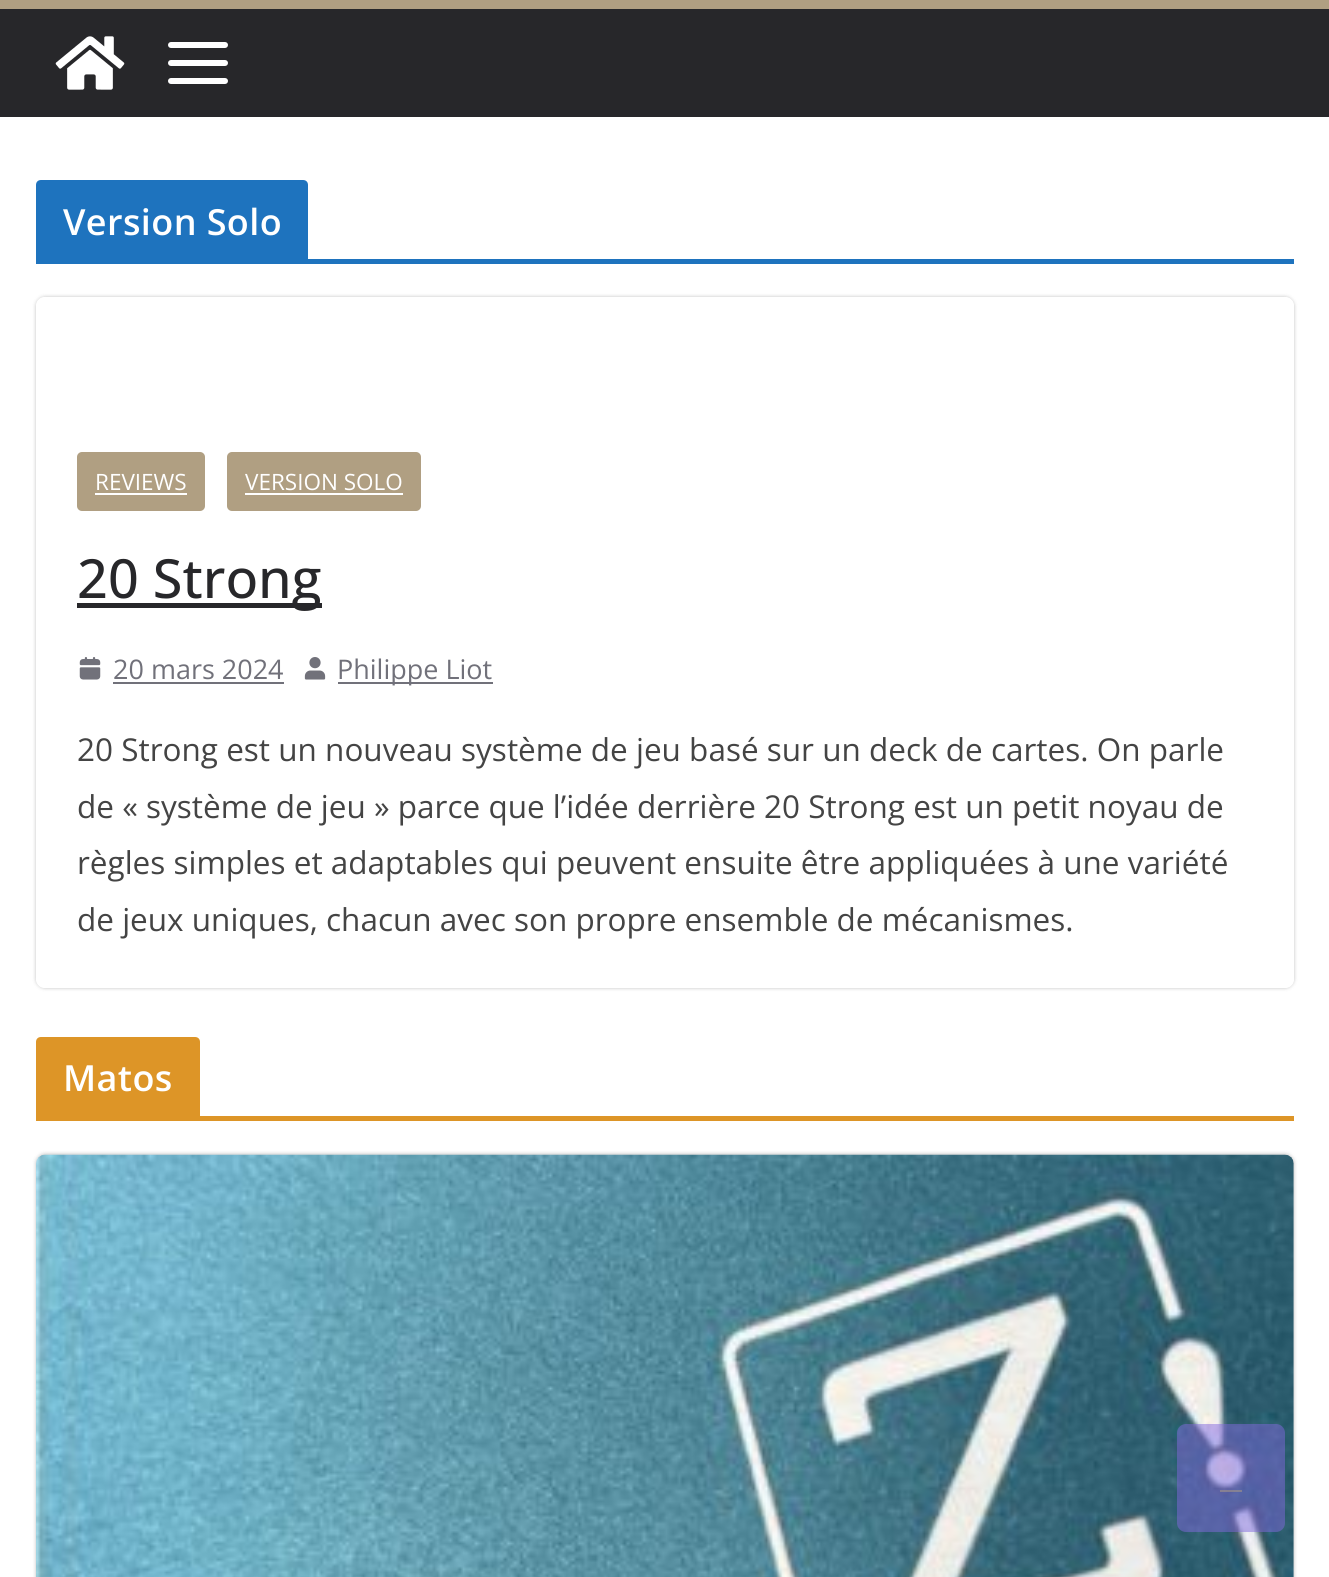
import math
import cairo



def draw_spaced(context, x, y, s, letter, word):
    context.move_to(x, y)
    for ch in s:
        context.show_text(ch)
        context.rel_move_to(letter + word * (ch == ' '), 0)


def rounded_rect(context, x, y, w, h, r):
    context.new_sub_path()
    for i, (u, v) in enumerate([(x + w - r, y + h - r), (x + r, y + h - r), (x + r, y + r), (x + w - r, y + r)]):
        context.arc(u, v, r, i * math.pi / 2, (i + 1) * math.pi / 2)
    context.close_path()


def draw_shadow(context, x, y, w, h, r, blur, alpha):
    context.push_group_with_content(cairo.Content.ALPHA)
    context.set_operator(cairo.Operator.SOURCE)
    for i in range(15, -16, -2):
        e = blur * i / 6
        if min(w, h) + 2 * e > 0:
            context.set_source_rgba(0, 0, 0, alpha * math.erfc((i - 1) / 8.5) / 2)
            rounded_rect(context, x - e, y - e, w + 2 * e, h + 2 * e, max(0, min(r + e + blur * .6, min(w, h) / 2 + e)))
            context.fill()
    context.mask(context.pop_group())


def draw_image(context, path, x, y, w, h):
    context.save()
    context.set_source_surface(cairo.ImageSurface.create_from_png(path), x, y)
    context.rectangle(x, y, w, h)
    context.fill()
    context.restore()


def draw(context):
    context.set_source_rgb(1, 1, 1)
    context.paint()
    context.set_source_rgb(39 / 255, 39 / 255, 42 / 255)
    context.rectangle(0, 9, 1329, 108)
    context.fill()
    context.set_source_rgb(176 / 255, 159 / 255, 130 / 255)
    context.rectangle(0, 0, 1329, 9)
    context.fill()
    draw_image(context, "images/1.png", 55, 36, 70, 54)
    draw_image(context, "images/2.png", 168, 42, 60, 42)
    context.set_source_rgb(30 / 255, 115 / 255, 190 / 255)
    context.rectangle(36, 259, 1258, 5)
    context.fill()
    context.new_path()
    context.move_to(41, 180)
    context.line_to(303, 180)
    context.curve_to(306, 180, 308, 182, 308, 185)
    context.line_to(308, 259)
    context.line_to(36, 259)
    context.line_to(36, 185)
    context.curve_to(36, 182, 38, 180, 41, 180)
    context.close_path()
    context.fill()
    context.save()
    context.set_fill_rule(cairo.FillRule.EVEN_ODD)
    context.new_path()
    context.move_to(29, 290)
    context.line_to(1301, 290)
    context.line_to(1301, 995)
    context.line_to(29, 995)
    context.close_path()
    context.move_to(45, 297)
    context.line_to(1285, 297)
    context.curve_to(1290, 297, 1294, 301, 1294, 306)
    context.line_to(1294, 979)
    context.curve_to(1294, 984, 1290, 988, 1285, 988)
    context.line_to(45, 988)
    context.curve_to(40, 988, 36, 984, 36, 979)
    context.line_to(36, 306)
    context.curve_to(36, 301, 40, 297, 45, 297)
    context.close_path()
    context.clip()
    context.set_source_rgb(0, 0, 0)
    draw_shadow(context, 36, 297, 1258, 691, 9, 2, 0.24)
    context.restore()
    context.set_source_rgb(176 / 255, 159 / 255, 130 / 255)
    rounded_rect(context, 77, 452, 128, 59, 5)
    context.fill()
    context.set_source_rgb(1, 1, 1)
    context.rectangle(95, 493, 92, 2)
    context.fill()
    context.set_source_rgb(176 / 255, 159 / 255, 130 / 255)
    rounded_rect(context, 227, 452, 194, 59, 5)
    context.fill()
    context.set_source_rgb(1, 1, 1)
    context.rectangle(245, 493, 158, 2)
    context.fill()
    context.set_source_rgb(39 / 255, 39 / 255, 42 / 255)
    context.rectangle(77, 603, 245, 5)
    context.fill()
    draw_image(context, "images/3.png", 79, 657, 22, 23)
    context.set_source_rgb(113 / 255, 113 / 255, 122 / 255)
    context.rectangle(113, 682, 171, 2)
    context.fill()
    draw_image(context, "images/4.png", 304, 657, 22, 23)
    context.rectangle(338, 682, 155, 2)
    context.fill()
    context.set_source_rgb(221 / 255, 149 / 255, 39 / 255)
    context.rectangle(36, 1116, 1258, 5)
    context.fill()
    context.new_path()
    context.move_to(41, 1037)
    context.line_to(195, 1037)
    context.curve_to(198, 1037, 200, 1039, 200, 1042)
    context.line_to(200, 1116)
    context.line_to(36, 1116)
    context.line_to(36, 1042)
    context.curve_to(36, 1039, 38, 1037, 41, 1037)
    context.close_path()
    context.fill()
    context.set_source_rgb(0, 0, 0)
    draw_shadow(context, 36, 1154, 1258, 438, 9, 2, 0.24)
    draw_image(context, "images/5.png", 36, 1154, 1258, 423)
    context.set_source_rgba(130 / 255, 105 / 255, 223 / 255, 0.5)
    rounded_rect(context, 1177, 1424, 108, 108, 9)
    context.fill()
    context.set_source_rgba(176 / 255, 159 / 255, 130 / 255, 0.5)
    context.rectangle(1220, 1490, 22, 2)
    context.fill()
    context.select_font_face("Open Sans SemiBold")
    context.set_font_size(36)
    context.set_source_rgb(1, 1, 1)
    draw_spaced(context, 63, 235, "Version Solo", 0.4, 0)
    context.select_font_face("Open Sans")
    context.set_font_size(22.5)
    context.move_to(95, 490)
    context.show_text("REVIEWS")
    context.move_to(245, 490)
    context.show_text("VERSION SOLO")
    context.select_font_face("Open Sans Medium")
    context.set_font_size(54)
    context.set_source_rgb(39 / 255, 39 / 255, 42 / 255)
    context.move_to(77, 598)
    context.show_text("20 Strong")
    context.select_font_face("Open Sans")
    context.set_font_size(27)
    context.set_source_rgb(113 / 255, 113 / 255, 122 / 255)
    context.move_to(113, 679)
    context.show_text("20 mars 2024")
    context.move_to(337, 679)
    context.show_text("Philippe Liot")
    context.set_font_size(31.5)
    context.set_source_rgb(68 / 255, 68 / 255, 68 / 255)
    context.move_to(77, 761)
    context.show_text("20 Strong est un nouveau système de jeu basé sur un deck de cartes. On parle")
    context.move_to(77, 818)
    context.show_text("de « système de jeu » parce que l’idée derrière 20 Strong est un petit noyau de")
    context.move_to(77, 874)
    context.show_text("règles simples et adaptables qui peuvent ensuite être appliquées à une variété")
    context.move_to(77, 931)
    context.show_text("de jeux uniques, chacun avec son propre ensemble de mécanismes.")
    context.select_font_face("Open Sans SemiBold")
    context.set_font_size(36)
    context.set_source_rgb(1, 1, 1)
    draw_spaced(context, 63, 1091, "Matos", 0.4, 0)


surface = cairo.ImageSurface(cairo.Format.RGB24, 1329, 1577)
context = cairo.Context(surface)
options = cairo.FontOptions()
options.set_hint_metrics(cairo.HintMetrics.OFF)
options.set_hint_style(cairo.HintStyle.NONE)
context.set_font_options(options)
context.set_miter_limit(4)
draw(context)
surface.write_to_png("out.png")
